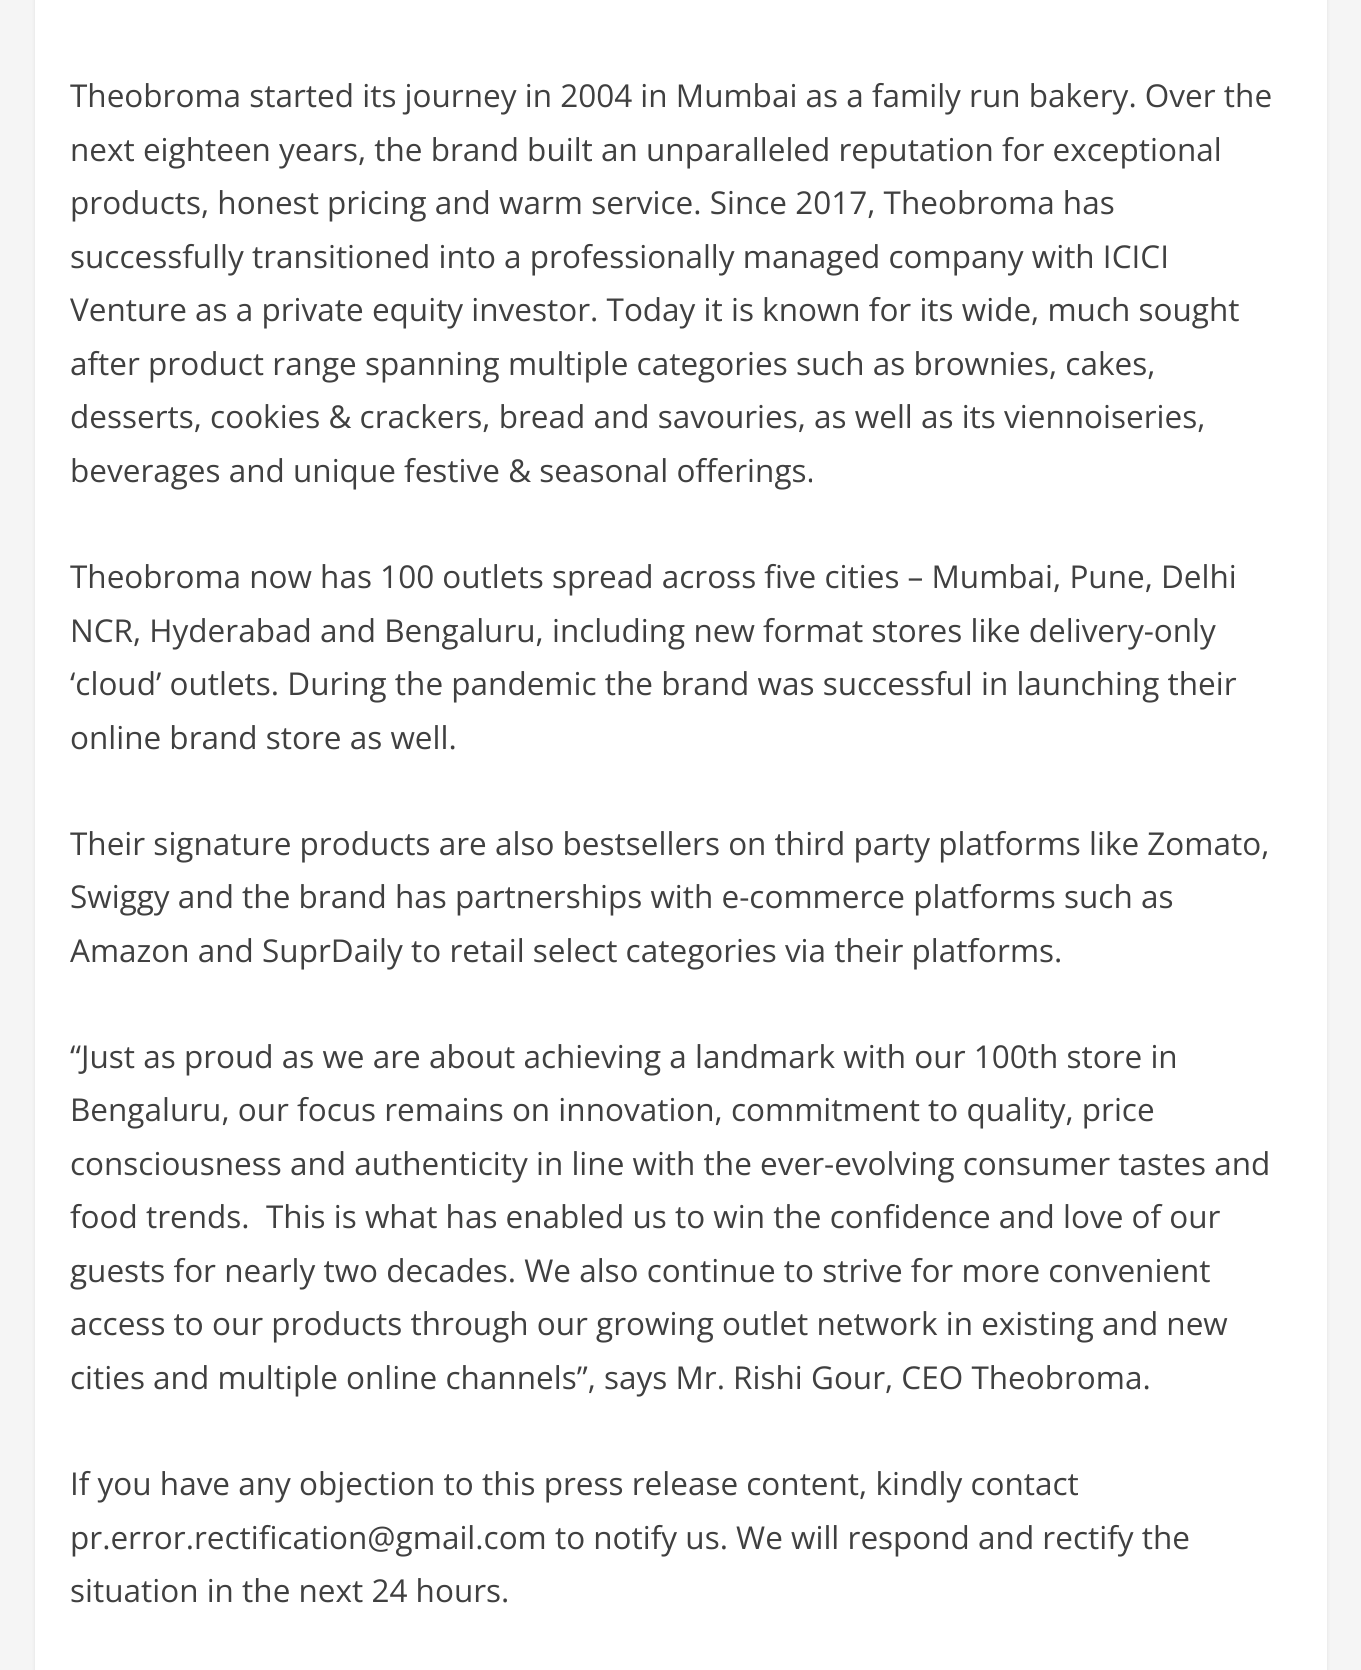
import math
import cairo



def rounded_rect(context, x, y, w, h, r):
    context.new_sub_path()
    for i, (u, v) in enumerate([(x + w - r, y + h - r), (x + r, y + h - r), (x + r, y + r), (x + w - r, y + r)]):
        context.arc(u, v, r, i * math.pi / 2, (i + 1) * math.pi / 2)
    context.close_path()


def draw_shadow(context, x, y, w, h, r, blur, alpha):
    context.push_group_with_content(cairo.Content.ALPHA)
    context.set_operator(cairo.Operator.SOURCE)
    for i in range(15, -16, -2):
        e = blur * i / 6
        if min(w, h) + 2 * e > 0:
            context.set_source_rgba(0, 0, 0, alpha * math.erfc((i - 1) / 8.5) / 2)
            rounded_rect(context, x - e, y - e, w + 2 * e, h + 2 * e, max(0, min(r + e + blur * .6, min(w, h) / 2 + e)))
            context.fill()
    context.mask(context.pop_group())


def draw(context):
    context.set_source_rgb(245 / 255, 245 / 255, 245 / 255)
    context.paint()
    context.set_source_rgb(0, 0, 0)
    draw_shadow(context, 35, -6, 1292, 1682, 0, 2, 0.08)
    context.set_source_rgb(1, 1, 1)
    context.rectangle(35, 0, 1292, 1670)
    context.fill()
    context.select_font_face("Open Sans")
    context.set_font_size(31.5)
    context.set_source_rgb(64 / 255, 64 / 255, 64 / 255)
    context.move_to(70, 107)
    context.show_text("Theobroma started its journey in 2004 in Mumbai as a family run bakery. Over the")
    context.move_to(70, 161)
    context.show_text("next eighteen years, the brand built an unparalleled reputation for exceptional")
    context.move_to(70, 214)
    context.show_text("products, honest pricing and warm service. Since 2017, Theobroma has")
    context.move_to(70, 268)
    context.show_text("successfully transitioned into a professionally managed company with ICICI")
    context.move_to(70, 321)
    context.show_text("Venture as a private equity investor. Today it is known for its wide, much sought")
    context.move_to(70, 375)
    context.show_text("after product range spanning multiple categories such as brownies, cakes,")
    context.move_to(70, 428)
    context.show_text("desserts, cookies & crackers, bread and savouries, as well as its viennoiseries,")
    context.move_to(70, 482)
    context.show_text("beverages and unique festive & seasonal offerings.")
    context.move_to(70, 588)
    context.show_text("Theobroma now has 100 outlets spread across five cities – Mumbai, Pune, Delhi")
    context.move_to(70, 642)
    context.show_text("NCR, Hyderabad and Bengaluru, including new format stores like delivery-only")
    context.move_to(70, 695)
    context.show_text("‘cloud’ outlets. During the pandemic the brand was successful in launching their")
    context.move_to(70, 749)
    context.show_text("online brand store as well.")
    context.move_to(70, 855)
    context.show_text("Their signature products are also bestsellers on third party platforms like Zomato,")
    context.move_to(70, 908)
    context.show_text("Swiggy and the brand has partnerships with e-commerce platforms such as")
    context.move_to(70, 962)
    context.show_text("Amazon and SuprDaily to retail select categories via their platforms.")
    context.move_to(70, 1068)
    context.show_text("“Just as proud as we are about achieving a landmark with our 100th store in")
    context.move_to(70, 1121)
    context.show_text("Bengaluru, our focus remains on innovation, commitment to quality, price")
    context.move_to(70, 1175)
    context.show_text("consciousness and authenticity in line with the ever-evolving consumer tastes and")
    context.move_to(70, 1228)
    context.show_text("food trends.  This is what has enabled us to win the confidence and love of our")
    context.move_to(70, 1282)
    context.show_text("guests for nearly two decades. We also continue to strive for more convenient")
    context.move_to(70, 1335)
    context.show_text("access to our products through our growing outlet network in existing and new")
    context.move_to(70, 1389)
    context.show_text("cities and multiple online channels”, says Mr. Rishi Gour, CEO Theobroma.")
    context.move_to(70, 1495)
    context.show_text("If you have any objection to this press release content, kindly contact")
    context.move_to(70, 1549)
    context.show_text("pr.error.rectification@gmail.com to notify us. We will respond and rectify the")
    context.move_to(70, 1602)
    context.show_text("situation in the next 24 hours.")


surface = cairo.ImageSurface(cairo.Format.RGB24, 1361, 1670)
context = cairo.Context(surface)
options = cairo.FontOptions()
options.set_hint_metrics(cairo.HintMetrics.OFF)
options.set_hint_style(cairo.HintStyle.NONE)
context.set_font_options(options)
context.set_miter_limit(4)
draw(context)
surface.write_to_png("out.png")
